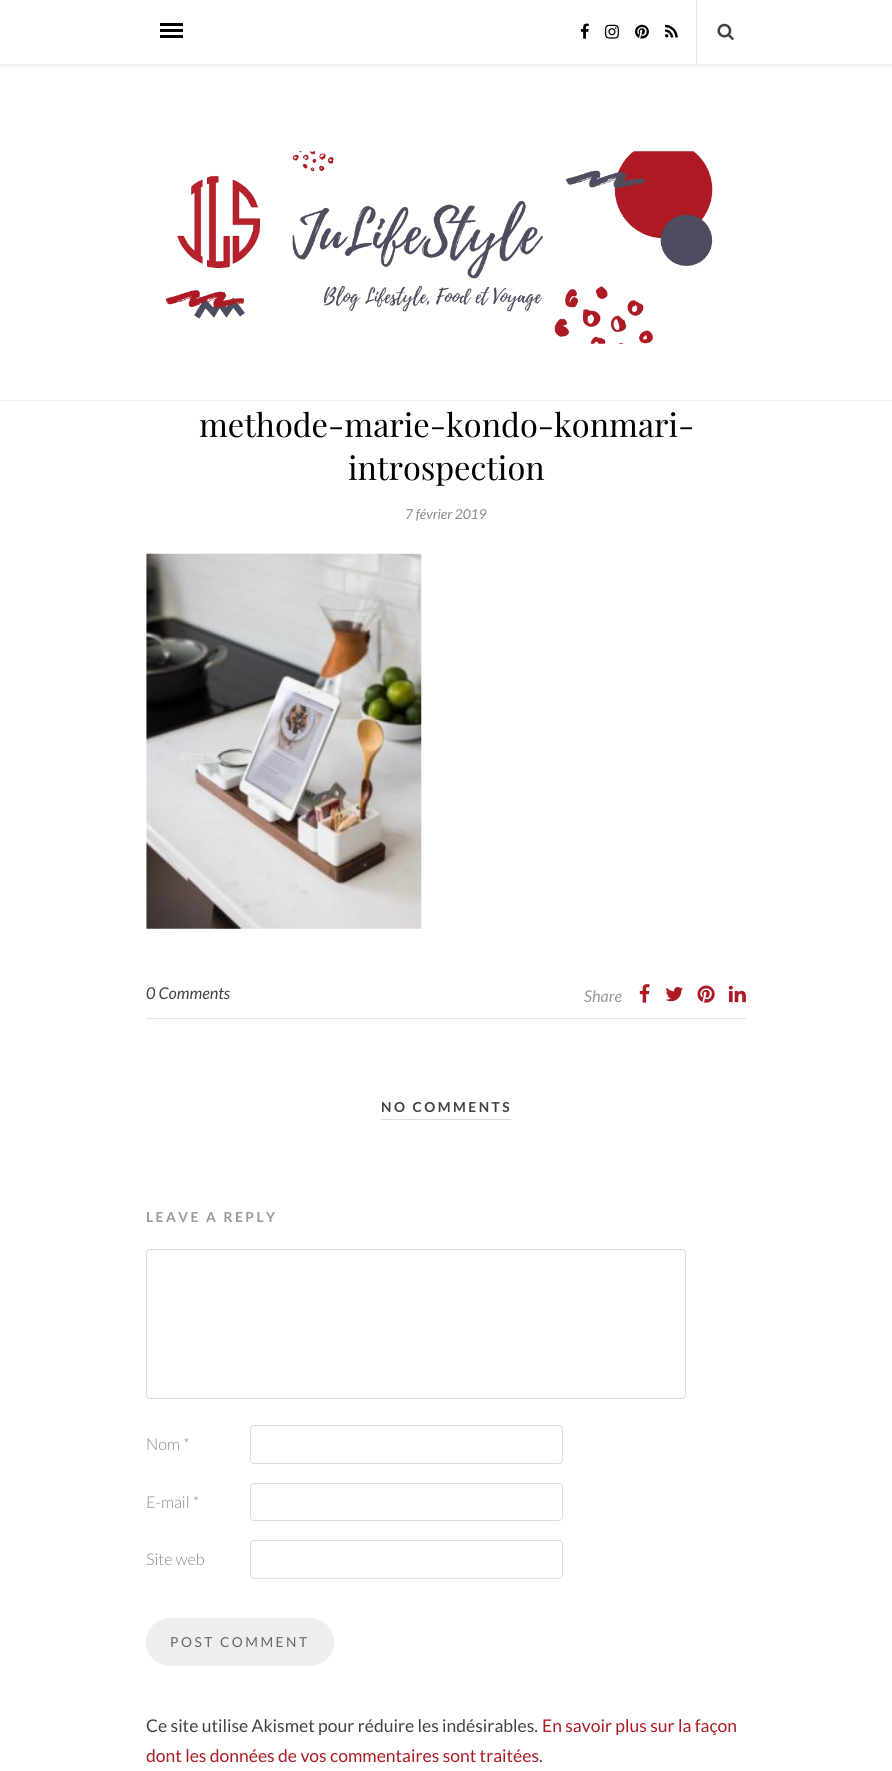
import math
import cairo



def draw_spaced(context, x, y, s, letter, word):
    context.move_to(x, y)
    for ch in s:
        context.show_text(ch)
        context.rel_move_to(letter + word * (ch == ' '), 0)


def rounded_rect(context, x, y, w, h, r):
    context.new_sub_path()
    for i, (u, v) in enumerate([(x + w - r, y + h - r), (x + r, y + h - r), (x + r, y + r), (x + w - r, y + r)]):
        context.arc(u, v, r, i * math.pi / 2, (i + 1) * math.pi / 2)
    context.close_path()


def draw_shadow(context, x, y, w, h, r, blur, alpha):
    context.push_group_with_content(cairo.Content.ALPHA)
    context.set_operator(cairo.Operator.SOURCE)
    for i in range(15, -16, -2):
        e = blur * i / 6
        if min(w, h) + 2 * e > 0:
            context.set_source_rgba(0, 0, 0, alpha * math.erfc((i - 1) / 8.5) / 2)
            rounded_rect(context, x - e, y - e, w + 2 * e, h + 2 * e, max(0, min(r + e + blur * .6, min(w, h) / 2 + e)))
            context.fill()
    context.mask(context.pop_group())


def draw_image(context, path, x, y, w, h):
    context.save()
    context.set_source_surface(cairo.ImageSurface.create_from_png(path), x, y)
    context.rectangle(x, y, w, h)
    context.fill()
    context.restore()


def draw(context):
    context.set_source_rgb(1, 1, 1)
    context.paint()
    context.set_source_rgb(190 / 255, 190 / 255, 190 / 255)
    draw_shadow(context, 0, 1, 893, 64, 0, 3, 0.46)
    context.set_source_rgb(1, 1, 1)
    context.rectangle(0, 0, 892, 64)
    context.fill()
    context.set_source_rgb(0, 0, 0)
    context.rectangle(160, 23, 23, 3)
    context.fill()
    context.rectangle(160, 29, 23, 3)
    context.fill()
    context.rectangle(160, 35, 23, 3)
    context.fill()
    draw_image(context, "images/1.png", 580, 23, 9, 16)
    draw_image(context, "images/2.png", 605, 24, 14, 15)
    draw_image(context, "images/3.png", 635, 24, 14, 15)
    draw_image(context, "images/4.png", 665, 24, 13, 14)
    context.set_source_rgb(232 / 255, 232 / 255, 232 / 255)
    context.rectangle(696, 0, 1, 64)
    context.fill()
    draw_image(context, "images/5.png", 717, 23, 17, 17)
    context.set_source_rgb(238 / 255, 238 / 255, 238 / 255)
    context.rectangle(0, 400, 892, 1)
    context.fill()
    draw_image(context, "images/6.png", 166, 151, 547, 193)
    draw_image(context, "images/7.png", 146, 553, 276, 376)
    context.set_source_rgb(229 / 255, 229 / 255, 229 / 255)
    context.rectangle(146, 1018, 600, 1)
    context.fill()
    draw_image(context, "images/8.png", 639, 984, 11, 19)
    draw_image(context, "images/9.png", 665, 987, 18, 15)
    draw_image(context, "images/10.png", 697, 985, 18, 18)
    draw_image(context, "images/11.png", 728, 985, 18, 18)
    context.set_source_rgb(221 / 255, 221 / 255, 221 / 255)
    context.rectangle(381, 1119, 130, 1)
    context.fill()
    rounded_rect(context, 146.5, 1249.5, 539, 149, 3.5)
    context.set_line_width(1)
    context.stroke()
    rounded_rect(context, 250.5, 1425.5, 312, 38, 3.5)
    context.stroke()
    rounded_rect(context, 250.5, 1483.5, 312, 37, 3.5)
    context.stroke()
    rounded_rect(context, 250.5, 1540.5, 312, 38, 3.5)
    context.stroke()
    context.set_source_rgb(238 / 255, 238 / 255, 238 / 255)
    rounded_rect(context, 146, 1618, 188, 48, 24)
    context.fill()
    context.select_font_face("Playfair Display")
    context.set_font_size(32.5)
    context.set_source_rgb(0, 0, 0)
    context.move_to(199, 437)
    context.show_text("methode-marie-kondo-konmari-")
    context.move_to(348, 480)
    context.show_text("introspection")
    context.select_font_face("Lato", cairo.FontSlant.ITALIC)
    context.set_font_size(13.75)
    context.set_source_rgb(136 / 255, 136 / 255, 136 / 255)
    context.move_to(405, 519)
    context.show_text("7 février 2019")
    context.set_font_size(16.25)
    context.set_source_rgb(66 / 255, 66 / 255, 66 / 255)
    context.move_to(146, 999)
    context.show_text("0 Comments")
    context.set_source_rgb(153 / 255, 153 / 255, 153 / 255)
    context.move_to(584, 1002)
    context.show_text("Share")
    context.select_font_face("Lato", cairo.FontSlant.NORMAL, cairo.FontWeight.BOLD)
    context.set_font_size(13.75)
    context.set_source_rgb(66 / 255, 66 / 255, 66 / 255)
    draw_spaced(context, 381, 1112, "NO COMMENTS", 2.5, 0)
    context.set_source_rgb(153 / 255, 153 / 255, 153 / 255)
    draw_spaced(context, 146, 1222, "LEAVE A REPLY", 2.5, 0)
    context.select_font_face("Lato Light")
    context.set_font_size(16.25)
    context.set_source_rgb(136 / 255, 136 / 255, 136 / 255)
    context.move_to(146, 1450)
    context.show_text("Nom *")
    context.move_to(146, 1508)
    context.show_text("E-mail *")
    context.move_to(146, 1565)
    context.show_text("Site web")
    context.select_font_face("Lato")
    context.set_font_size(13.75)
    context.set_source_rgb(102 / 255, 102 / 255, 102 / 255)
    draw_spaced(context, 170, 1647, "POST COMMENT", 2.5, 0)
    context.set_font_size(17.5)
    context.set_source_rgb(66 / 255, 66 / 255, 66 / 255)
    context.move_to(146, 1732)
    context.show_text("Ce site utilise Akismet pour réduire les indésirables.")
    context.set_source_rgb(173 / 255, 26 / 255, 36 / 255)
    context.move_to(542, 1732)
    context.show_text("En savoir plus sur la façon")
    context.move_to(146, 1762)
    context.show_text("dont les données de vos commentaires sont traitées")
    context.set_source_rgb(66 / 255, 66 / 255, 66 / 255)
    context.move_to(539, 1762)
    context.show_text(".")


surface = cairo.ImageSurface(cairo.Format.RGB24, 892, 1771)
context = cairo.Context(surface)
options = cairo.FontOptions()
options.set_hint_metrics(cairo.HintMetrics.OFF)
options.set_hint_style(cairo.HintStyle.NONE)
context.set_font_options(options)
context.set_miter_limit(4)
draw(context)
surface.write_to_png("out.png")
